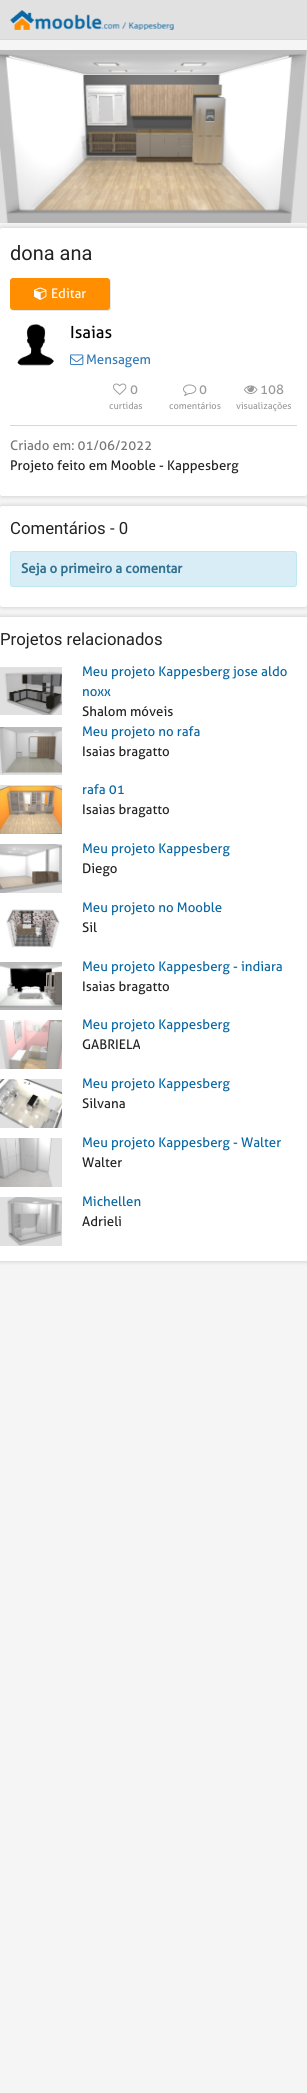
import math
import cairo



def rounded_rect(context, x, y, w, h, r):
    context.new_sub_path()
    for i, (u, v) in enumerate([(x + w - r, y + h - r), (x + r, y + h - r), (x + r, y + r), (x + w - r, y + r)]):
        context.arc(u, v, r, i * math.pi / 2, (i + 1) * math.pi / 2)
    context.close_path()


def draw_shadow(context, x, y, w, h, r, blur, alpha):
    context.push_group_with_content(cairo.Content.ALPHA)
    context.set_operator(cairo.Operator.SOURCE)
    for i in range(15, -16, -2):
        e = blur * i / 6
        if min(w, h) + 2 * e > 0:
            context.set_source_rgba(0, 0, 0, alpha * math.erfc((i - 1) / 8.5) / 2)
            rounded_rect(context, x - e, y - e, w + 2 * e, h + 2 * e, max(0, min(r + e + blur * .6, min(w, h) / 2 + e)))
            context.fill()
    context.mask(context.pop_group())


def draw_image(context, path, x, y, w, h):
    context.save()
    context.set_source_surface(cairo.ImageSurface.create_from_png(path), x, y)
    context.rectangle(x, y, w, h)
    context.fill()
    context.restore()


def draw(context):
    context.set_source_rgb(245 / 255, 245 / 255, 245 / 255)
    context.paint()
    context.set_source_rgb(225 / 255, 225 / 255, 225 / 255)
    context.rectangle(0, 0, 307, 39)
    context.fill()
    context.set_source_rgb(216 / 255, 216 / 255, 216 / 255)
    context.rectangle(0, 39, 307, 1)
    context.fill()
    draw_image(context, "images/1.png", 10, 10, 164, 20)
    context.set_source_rgb(0, 0, 0)
    draw_shadow(context, 0, 228, 307, 268, 2, 2.5, 0.2)
    draw_image(context, "images/2.png", 0, 50, 307, 173)
    context.set_source_rgb(1, 1, 1)
    rounded_rect(context, 0, 228, 307, 268, 2)
    context.fill()
    context.set_source_rgb(230 / 255, 230 / 255, 230 / 255)
    context.new_path()
    context.move_to(11, 310)
    context.curve_to(12, 310, 13, 311, 14, 311)
    context.line_to(108, 311)
    context.curve_to(110, 311, 111, 310, 111, 308)
    context.line_to(111, 282)
    context.curve_to(111, 281, 110, 280, 110, 279)
    context.line_to(110, 281)
    context.line_to(110, 307)
    context.curve_to(110, 309, 109, 310, 107, 310)
    context.line_to(13, 310)
    context.close_path()
    context.fill()
    context.set_source_rgb(1, 142 / 255, 0)
    rounded_rect(context, 10, 278, 100, 32, 3)
    context.fill()
    draw_image(context, "images/3.png", 34, 287, 13, 13)
    draw_image(context, "images/4.png", 17, 324, 37, 42)
    draw_image(context, "images/5.png", 70, 354, 14, 11)
    draw_image(context, "images/6.png", 113, 383, 14, 12)
    draw_image(context, "images/7.png", 183, 384, 14, 12)
    draw_image(context, "images/8.png", 244, 385, 14, 9)
    context.set_source_rgb(216 / 255, 216 / 255, 216 / 255)
    context.rectangle(10, 425, 287, 1)
    context.fill()
    context.set_source_rgb(0, 0, 0)
    draw_shadow(context, 0, 506, 307, 101, 2, 2.5, 0.2)
    context.set_source_rgb(1, 1, 1)
    rounded_rect(context, 0, 506, 307, 101, 2)
    context.fill()
    context.set_source_rgb(217 / 255, 237 / 255, 247 / 255)
    rounded_rect(context, 10.5, 551.5, 286, 35, 2.5)
    context.fill_preserve()
    context.set_source_rgb(188 / 255, 232 / 255, 241 / 255)
    context.set_line_width(1)
    context.stroke()
    context.set_source_rgb(0, 0, 0)
    draw_shadow(context, -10, 617, 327, 644, 2, 2.5, 0.2)
    context.set_source_rgb(1, 1, 1)
    context.rectangle(0, 617, 307, 644)
    context.fill()
    draw_image(context, "images/9.png", 0, 667, 62, 48)
    draw_image(context, "images/10.png", 0, 727, 62, 48)
    draw_image(context, "images/11.png", 0, 785, 62, 49)
    draw_image(context, "images/12.png", 0, 844, 62, 49)
    draw_image(context, "images/13.png", 6, 909, 54, 39)
    draw_image(context, "images/14.png", 0, 962, 62, 48)
    draw_image(context, "images/15.png", 0, 1020, 62, 49)
    draw_image(context, "images/16.png", 0, 1079, 62, 49)
    draw_image(context, "images/17.png", 0, 1138, 62, 49)
    draw_image(context, "images/18.png", 0, 1197, 62, 49)
    context.select_font_face("Roboto")
    context.set_font_size(20)
    context.set_source_rgb(34 / 255, 34 / 255, 34 / 255)
    context.move_to(10, 260)
    context.show_text("dona ana")
    context.select_font_face("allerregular")
    context.set_font_size(13.3)
    context.set_source_rgb(1, 1, 1)
    context.move_to(51, 298)
    context.show_text("Editar")
    context.set_font_size(16.75)
    context.set_source_rgb(0, 0, 0)
    context.move_to(70, 338)
    context.show_text("Isaias")
    context.set_font_size(13.3)
    context.set_source_rgb(51 / 255, 122 / 255, 183 / 255)
    context.move_to(86, 364)
    context.show_text("Mensagem")
    context.set_source_rgb(153 / 255, 153 / 255, 153 / 255)
    context.move_to(130, 394)
    context.show_text("0")
    context.set_font_size(9.25)
    context.move_to(109, 409)
    context.show_text("curtidas")
    context.set_font_size(13.3)
    context.move_to(199, 394)
    context.show_text("0")
    context.set_font_size(9.25)
    context.move_to(169, 409)
    context.show_text("comentários")
    context.set_font_size(13.3)
    context.move_to(260, 394)
    context.show_text("108")
    context.set_font_size(9.25)
    context.move_to(236, 409)
    context.show_text("visualizações")
    context.set_font_size(13.3)
    context.set_source_rgb(119 / 255, 119 / 255, 119 / 255)
    context.move_to(10, 450)
    context.show_text("Criado em: 01/06/2022")
    context.set_source_rgb(34 / 255, 34 / 255, 34 / 255)
    context.move_to(10, 470)
    context.show_text("Projeto feito em Mooble - Kappesberg")
    context.select_font_face("Roboto")
    context.set_font_size(16.75)
    context.move_to(10, 534)
    context.show_text("Comentários - 0")
    context.select_font_face("allerregular", cairo.FontSlant.NORMAL, cairo.FontWeight.BOLD)
    context.set_font_size(13.3)
    context.set_source_rgb(49 / 255, 112 / 255, 143 / 255)
    context.move_to(21, 573)
    context.show_text("Seja o primeiro a comentar")
    context.select_font_face("Roboto")
    context.set_font_size(16.75)
    context.set_source_rgb(34 / 255, 34 / 255, 34 / 255)
    context.move_to(0, 645)
    context.show_text("Projetos relacionados")
    context.select_font_face("allerregular")
    context.set_font_size(13.3)
    context.set_source_rgb(9 / 255, 103 / 255, 163 / 255)
    context.move_to(82, 676)
    context.show_text("Meu projeto Kappesberg jose aldo")
    context.move_to(82, 696)
    context.show_text("noxx")
    context.set_source_rgb(34 / 255, 34 / 255, 34 / 255)
    context.move_to(82, 716)
    context.show_text("Shalom móveis")
    context.set_source_rgb(9 / 255, 103 / 255, 163 / 255)
    context.move_to(82, 736)
    context.show_text("Meu projeto no rafa")
    context.set_source_rgb(34 / 255, 34 / 255, 34 / 255)
    context.move_to(82, 756)
    context.show_text("Isaias bragatto")
    context.set_source_rgb(9 / 255, 103 / 255, 163 / 255)
    context.move_to(82, 794)
    context.show_text("rafa 01")
    context.set_source_rgb(34 / 255, 34 / 255, 34 / 255)
    context.move_to(82, 814)
    context.show_text("Isaias bragatto")
    context.set_source_rgb(9 / 255, 103 / 255, 163 / 255)
    context.move_to(82, 853)
    context.show_text("Meu projeto Kappesberg")
    context.set_source_rgb(34 / 255, 34 / 255, 34 / 255)
    context.move_to(82, 873)
    context.show_text("Diego")
    context.set_source_rgb(9 / 255, 103 / 255, 163 / 255)
    context.move_to(82, 912)
    context.show_text("Meu projeto no Mooble")
    context.set_source_rgb(34 / 255, 34 / 255, 34 / 255)
    context.move_to(82, 932)
    context.show_text("Sil")
    context.set_source_rgb(9 / 255, 103 / 255, 163 / 255)
    context.move_to(82, 971)
    context.show_text("Meu projeto Kappesberg - indiara")
    context.set_source_rgb(34 / 255, 34 / 255, 34 / 255)
    context.move_to(82, 991)
    context.show_text("Isaias bragatto")
    context.set_source_rgb(9 / 255, 103 / 255, 163 / 255)
    context.move_to(82, 1029)
    context.show_text("Meu projeto Kappesberg")
    context.set_source_rgb(34 / 255, 34 / 255, 34 / 255)
    context.move_to(82, 1049)
    context.show_text("GABRIELA")
    context.set_source_rgb(9 / 255, 103 / 255, 163 / 255)
    context.move_to(82, 1088)
    context.show_text("Meu projeto Kappesberg")
    context.set_source_rgb(34 / 255, 34 / 255, 34 / 255)
    context.move_to(82, 1108)
    context.show_text("Silvana")
    context.set_source_rgb(9 / 255, 103 / 255, 163 / 255)
    context.move_to(82, 1147)
    context.show_text("Meu projeto Kappesberg - Walter")
    context.set_source_rgb(34 / 255, 34 / 255, 34 / 255)
    context.move_to(82, 1167)
    context.show_text("Walter")
    context.set_source_rgb(9 / 255, 103 / 255, 163 / 255)
    context.move_to(82, 1206)
    context.show_text("Michellen")
    context.set_source_rgb(34 / 255, 34 / 255, 34 / 255)
    context.move_to(82, 1226)
    context.show_text("Adrieli")


surface = cairo.ImageSurface(cairo.Format.RGB24, 307, 2093)
context = cairo.Context(surface)
options = cairo.FontOptions()
options.set_hint_metrics(cairo.HintMetrics.OFF)
options.set_hint_style(cairo.HintStyle.NONE)
context.set_font_options(options)
context.set_miter_limit(4)
draw(context)
surface.write_to_png("out.png")
